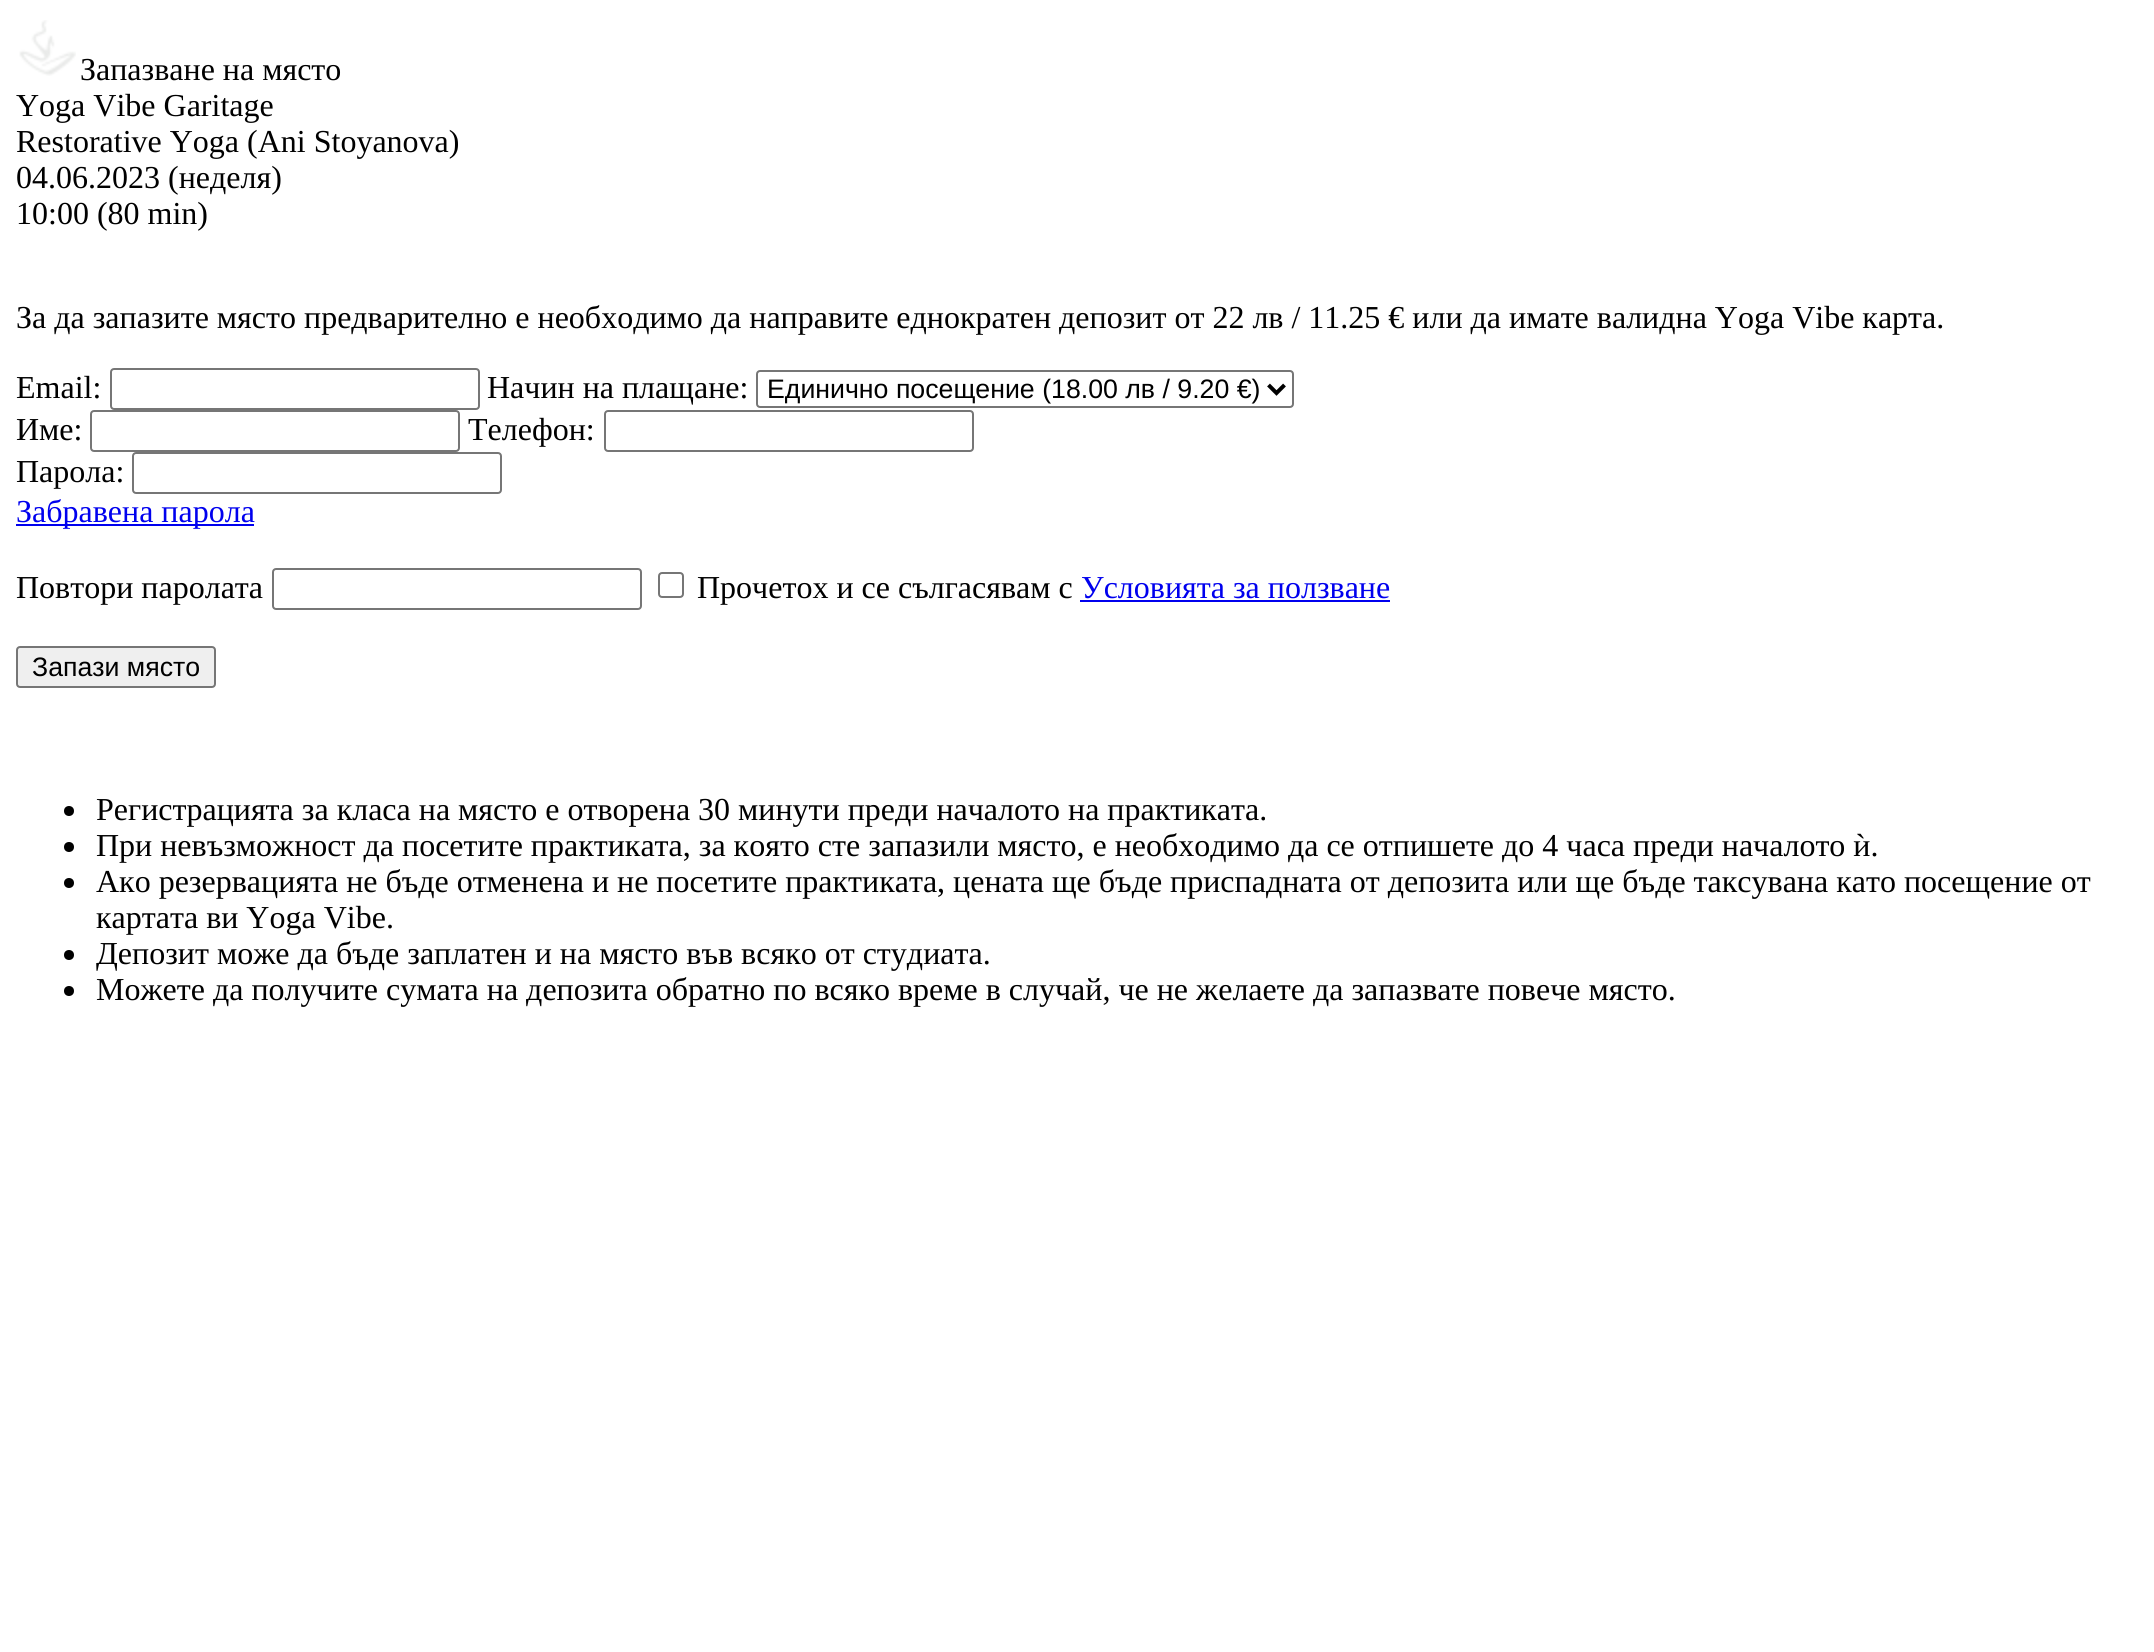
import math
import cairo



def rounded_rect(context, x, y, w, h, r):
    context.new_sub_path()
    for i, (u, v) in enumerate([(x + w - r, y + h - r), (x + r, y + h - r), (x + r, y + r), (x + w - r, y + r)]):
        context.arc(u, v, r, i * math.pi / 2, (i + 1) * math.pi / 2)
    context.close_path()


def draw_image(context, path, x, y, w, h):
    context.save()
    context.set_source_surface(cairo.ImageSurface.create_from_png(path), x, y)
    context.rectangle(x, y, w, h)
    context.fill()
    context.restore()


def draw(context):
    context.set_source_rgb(1, 1, 1)
    context.paint()
    draw_image(context, "images/1.png", 19, 20, 57, 56)
    rounded_rect(context, 111, 369, 368, 40, 3)
    context.set_source_rgb(118 / 255, 118 / 255, 118 / 255)
    context.stroke()
    rounded_rect(context, 757, 371, 536, 36, 3)
    context.stroke()
    context.new_path()
    context.move_to(1268.5, 385)
    context.line_to(1276.5, 393)
    context.line_to(1284.5, 385)
    context.set_source_rgb(0, 0, 0)
    context.set_line_width(4)
    context.stroke()
    rounded_rect(context, 91, 411, 368, 40, 3)
    context.set_source_rgb(118 / 255, 118 / 255, 118 / 255)
    context.set_line_width(2)
    context.stroke()
    rounded_rect(context, 605, 411, 368, 40, 3)
    context.stroke()
    rounded_rect(context, 133, 453, 368, 40, 3)
    context.stroke()
    context.set_source_rgb(0, 0, 238 / 255)
    context.rectangle(16, 524, 238, 2)
    context.fill()
    rounded_rect(context, 273, 569, 368, 40, 3)
    context.set_source_rgb(118 / 255, 118 / 255, 118 / 255)
    context.stroke()
    rounded_rect(context, 659, 573, 24, 24, 3)
    context.stroke()
    context.set_source_rgb(0, 0, 238 / 255)
    context.rectangle(1080, 600, 310, 2)
    context.fill()
    context.set_source_rgb(239 / 255, 239 / 255, 239 / 255)
    rounded_rect(context, 17, 647, 198, 40, 3)
    context.fill_preserve()
    context.set_source_rgb(118 / 255, 118 / 255, 118 / 255)
    context.stroke()
    context.set_source_rgb(0, 0, 0)
    context.arc(69, 811, 5, 0, 2 * math.pi)
    context.fill()
    context.arc(69, 847, 5, 0, 2 * math.pi)
    context.fill()
    context.arc(69, 883, 5, 0, 2 * math.pi)
    context.fill()
    context.arc(69, 955, 5, 0, 2 * math.pi)
    context.fill()
    context.arc(69, 991, 5, 0, 2 * math.pi)
    context.fill()
    context.select_font_face("Liberation Serif")
    context.set_font_size(32)
    context.move_to(80, 80)
    context.show_text("Запазване на място")
    context.move_to(16, 116)
    context.show_text("Yoga Vibe Garitage")
    context.move_to(16, 152)
    context.show_text("Restorative Yoga (Ani Stoyanova)")
    context.move_to(16, 188)
    context.show_text("04.06.2023 (неделя)")
    context.move_to(16, 224)
    context.show_text("10:00 (80 min)")
    context.move_to(16, 328)
    context.show_text("За да запазите място предварително е необходимо да направите еднократен депозит от 22 лв / 11.25 € или да имате валидна Yoga Vibe карта.")
    context.move_to(16, 398)
    context.show_text("Email:")
    context.move_to(487, 398)
    context.show_text("Начин на плащане:")
    context.select_font_face("Liberation Sans")
    context.set_font_size(26.7)
    context.move_to(767, 398)
    context.show_text("Eдинично посещение (18.00 лв / 9.20 €)")
    context.select_font_face("Liberation Serif")
    context.set_font_size(32)
    context.move_to(16, 440)
    context.show_text("Име:")
    context.move_to(468, 440)
    context.show_text("Телефон:")
    context.move_to(16, 482)
    context.show_text("Парола:")
    context.set_source_rgb(0, 0, 238 / 255)
    context.move_to(16, 522)
    context.show_text("Забравена парола")
    context.set_source_rgb(0, 0, 0)
    context.move_to(16, 598)
    context.show_text("Повтори паролата")
    context.move_to(697, 598)
    context.show_text("Прочетох и се сългасявам с")
    context.set_source_rgb(0, 0, 238 / 255)
    context.move_to(1081, 598)
    context.show_text("Условията за ползване")
    context.select_font_face("Liberation Sans")
    context.set_font_size(26.7)
    context.set_source_rgb(0, 0, 0)
    context.move_to(32, 676)
    context.show_text("Запази място")
    context.select_font_face("Liberation Serif")
    context.set_font_size(32)
    context.move_to(96, 820)
    context.show_text("Регистрацията за класа на място е отворена 30 минути преди началото на практиката.")
    context.move_to(96, 856)
    context.show_text("При невъзможност да посетите практиката, за която сте запазили място, е необходимо да се отпишете до 4 часа преди началото ѝ.")
    context.move_to(96, 892)
    context.show_text("Ако резервацията не бъде отменена и не посетите практиката, цената ще бъде приспадната от депозита или ще бъде таксувана като посещение от")
    context.move_to(96, 928)
    context.show_text("картата ви Yoga Vibe.")
    context.move_to(96, 964)
    context.show_text("Депозит може да бъде заплатен и на място във всяко от студиата.")
    context.move_to(96, 1000)
    context.show_text("Можете да получите сумата на депозита обратно по всяко време в случай, че не желаете да запазвате повече място.")


surface = cairo.ImageSurface(cairo.Format.RGB24, 2154, 1652)
context = cairo.Context(surface)
options = cairo.FontOptions()
options.set_hint_metrics(cairo.HintMetrics.OFF)
options.set_hint_style(cairo.HintStyle.NONE)
context.set_font_options(options)
context.set_miter_limit(4)
draw(context)
surface.write_to_png("out.png")
